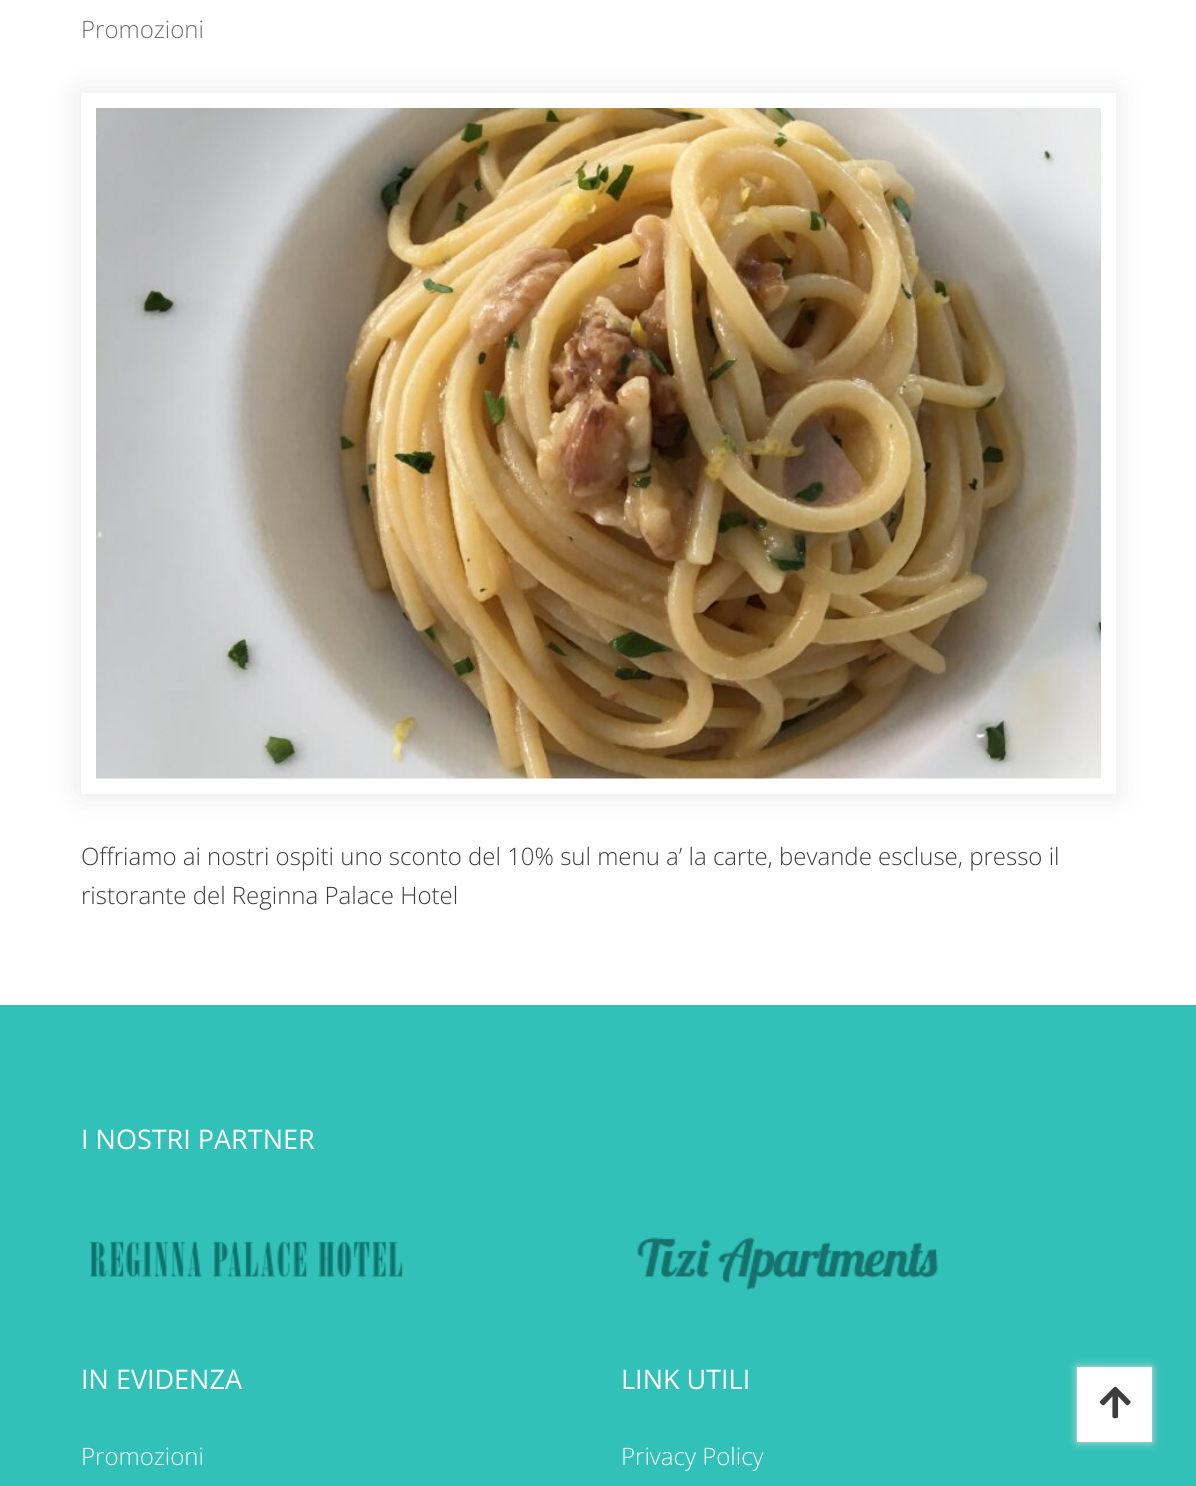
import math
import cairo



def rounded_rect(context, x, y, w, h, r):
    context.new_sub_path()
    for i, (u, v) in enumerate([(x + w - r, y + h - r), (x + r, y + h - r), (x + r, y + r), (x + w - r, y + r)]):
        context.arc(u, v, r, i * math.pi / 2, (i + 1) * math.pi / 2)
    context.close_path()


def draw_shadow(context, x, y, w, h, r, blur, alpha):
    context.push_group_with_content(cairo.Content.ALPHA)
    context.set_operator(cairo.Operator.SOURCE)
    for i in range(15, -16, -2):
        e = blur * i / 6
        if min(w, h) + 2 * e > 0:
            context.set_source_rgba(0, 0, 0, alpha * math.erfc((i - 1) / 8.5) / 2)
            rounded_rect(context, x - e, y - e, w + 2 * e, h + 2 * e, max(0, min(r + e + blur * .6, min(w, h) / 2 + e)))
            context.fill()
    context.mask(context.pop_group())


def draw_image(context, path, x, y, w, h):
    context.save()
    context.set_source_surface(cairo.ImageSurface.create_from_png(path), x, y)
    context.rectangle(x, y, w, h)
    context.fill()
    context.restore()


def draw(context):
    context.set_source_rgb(1, 1, 1)
    context.paint()
    context.set_source_rgb(0, 0, 0)
    draw_shadow(context, 81, 93, 1035, 701, 0, 15, 0.1)
    context.set_source_rgb(1, 1, 1)
    context.rectangle(81, 93, 1035, 701)
    context.fill()
    draw_image(context, "images/1.png", 96, 108, 1005, 671)
    context.set_source_rgb(50 / 255, 193 / 255, 184 / 255)
    context.rectangle(0, 1005, 1196, 481)
    context.fill()
    draw_image(context, "images/2.png", 89, 1241, 314, 36)
    draw_image(context, "images/3.png", 637, 1237, 301, 54)
    context.set_source_rgb(221 / 255, 221 / 255, 221 / 255)
    draw_shadow(context, 1077, 1367, 75, 75, 0, 4, 1)
    context.set_source_rgb(1, 1, 1)
    context.rectangle(1077, 1367, 75, 75)
    context.fill()
    draw_image(context, "images/4.png", 1099, 1386, 32, 33)
    context.select_font_face("Open Sans Light")
    context.set_font_size(24)
    context.set_source_rgb(111 / 255, 111 / 255, 111 / 255)
    context.move_to(81, 38)
    context.show_text("Promozioni")
    context.set_source_rgb(61 / 255, 61 / 255, 61 / 255)
    context.move_to(81, 865)
    context.show_text("Offriamo ai nostri ospiti uno sconto del 10% sul menu a’ la carte, bevande escluse, presso il")
    context.move_to(81, 904)
    context.show_text("ristorante del Reginna Palace Hotel")
    context.select_font_face("Open Sans")
    context.set_font_size(27)
    context.set_source_rgb(1, 1, 1)
    context.move_to(81, 1149)
    context.show_text("I NOSTRI PARTNER")
    context.move_to(81, 1389)
    context.show_text("IN EVIDENZA")
    context.select_font_face("Open Sans Light")
    context.set_font_size(24)
    context.move_to(81, 1465)
    context.show_text("Promozioni")
    context.select_font_face("Open Sans")
    context.set_font_size(27)
    context.move_to(621, 1389)
    context.show_text("LINK UTILI")
    context.select_font_face("Open Sans Light")
    context.set_font_size(24)
    context.move_to(621, 1465)
    context.show_text("Privacy Policy")


surface = cairo.ImageSurface(cairo.Format.RGB24, 1196, 1486)
context = cairo.Context(surface)
options = cairo.FontOptions()
options.set_hint_metrics(cairo.HintMetrics.OFF)
options.set_hint_style(cairo.HintStyle.NONE)
context.set_font_options(options)
context.set_miter_limit(4)
draw(context)
surface.write_to_png("out.png")
